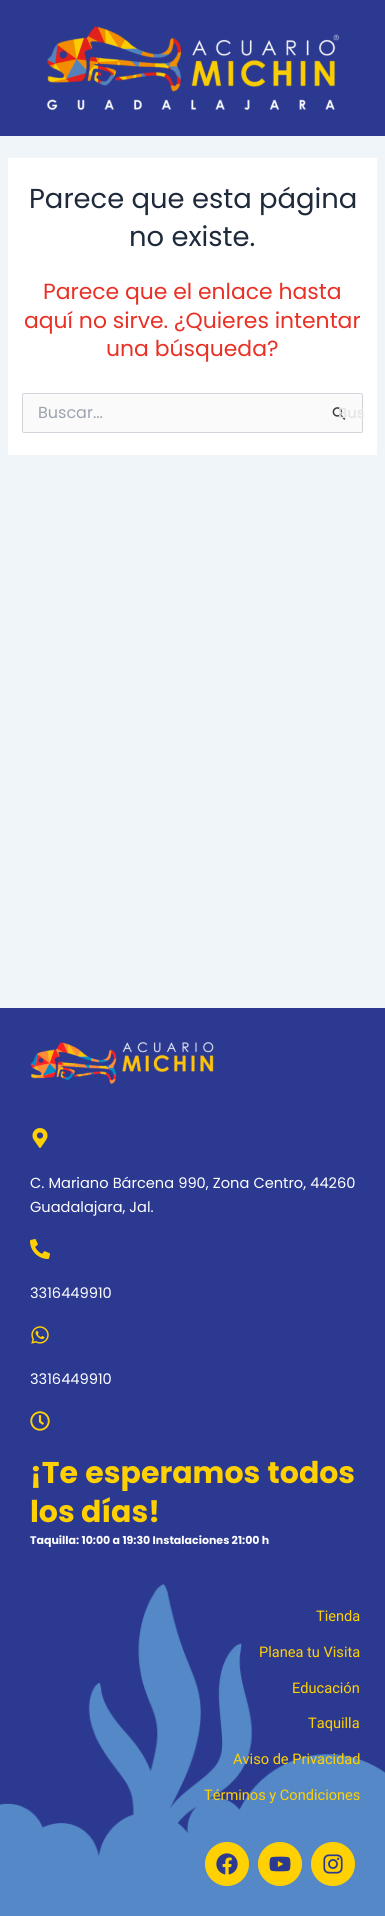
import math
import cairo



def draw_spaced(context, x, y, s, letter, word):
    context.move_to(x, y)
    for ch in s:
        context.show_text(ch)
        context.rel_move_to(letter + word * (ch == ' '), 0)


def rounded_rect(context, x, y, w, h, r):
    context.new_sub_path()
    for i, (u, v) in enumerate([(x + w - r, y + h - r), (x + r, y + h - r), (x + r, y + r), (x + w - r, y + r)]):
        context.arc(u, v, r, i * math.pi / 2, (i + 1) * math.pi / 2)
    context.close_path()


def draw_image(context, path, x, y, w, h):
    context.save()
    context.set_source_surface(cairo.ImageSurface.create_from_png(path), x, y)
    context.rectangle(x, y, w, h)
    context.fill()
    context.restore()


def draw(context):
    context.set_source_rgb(240 / 255, 245 / 255, 250 / 255)
    context.paint()
    context.set_source_rgb(43 / 255, 57 / 255, 145 / 255)
    context.rectangle(0, 0, 385, 136)
    context.fill()
    draw_image(context, "images/1.png", 46, 26, 294, 85)
    context.set_source_rgb(1, 1, 1)
    context.rectangle(8, 158, 369, 297)
    context.fill()
    context.set_source_rgb(250 / 255, 250 / 255, 250 / 255)
    rounded_rect(context, 22.5, 393.5, 340, 39, 1.5)
    context.fill_preserve()
    context.set_source_rgb(209 / 255, 213 / 255, 219 / 255)
    context.set_line_width(1)
    context.stroke()
    draw_image(context, "images/2.png", 332, 407, 14, 13)
    context.set_source_rgb(43 / 255, 57 / 255, 145 / 255)
    context.rectangle(0, 1008, 385, 849)
    context.fill()
    draw_image(context, "images/3.png", 0, 1584, 385, 332)
    draw_image(context, "images/4.png", 30, 1042, 184, 42)
    draw_image(context, "images/5.png", 32, 1128, 16, 20)
    draw_image(context, "images/6.png", 30, 1239, 20, 20)
    draw_image(context, "images/7.png", 31, 1326, 18, 18)
    draw_image(context, "images/8.png", 30, 1411, 20, 20)
    context.set_source_rgb(1, 209 / 255, 3 / 255)
    context.arc(227, 1864, 22, 0, 2 * math.pi)
    context.fill()
    draw_image(context, "images/9.png", 216, 1853, 22, 22)
    context.arc(280, 1864, 22, 0, 2 * math.pi)
    context.fill()
    draw_image(context, "images/10.png", 269, 1856, 22, 16)
    context.arc(333, 1864, 22, 0, 2 * math.pi)
    context.fill()
    draw_image(context, "images/11.png", 323, 1854, 20, 20)
    context.select_font_face("Poppins")
    context.set_font_size(27.4)
    context.set_source_rgb(30 / 255, 41 / 255, 59 / 255)
    context.move_to(29, 208)
    context.show_text("Parece que esta página")
    context.move_to(129, 246)
    context.show_text("no existe.")
    context.set_font_size(21.9)
    context.set_source_rgb(233 / 255, 48 / 255, 37 / 255)
    context.move_to(43, 299)
    context.show_text("Parece que el enlace hasta")
    context.move_to(24, 328)
    context.show_text("aquí no sirve. ¿Quieres intentar")
    context.move_to(106, 356)
    context.show_text("una búsqueda?")
    context.set_font_size(16)
    context.set_source_rgb(156 / 255, 163 / 255, 175 / 255)
    context.move_to(38, 418)
    context.show_text("Buscar...")
    context.select_font_face("Poppins Medium")
    context.set_font_size(14.6)
    context.set_source_rgb(228 / 255, 228 / 255, 228 / 255)
    context.move_to(338, 418)
    context.show_text("Bus")
    context.select_font_face("Poppins")
    context.set_source_rgb(1, 1, 1)
    draw_spaced(context, 30, 1188, "C. Mariano Bárcena 990, Zona Centro, 44260", 0, 0.25)
    context.move_to(30, 1212)
    context.show_text("Guadalajara, Jal.")
    context.move_to(30, 1298)
    context.show_text("3316449910")
    context.move_to(30, 1384)
    context.show_text("3316449910")
    context.select_font_face("Poppins", cairo.FontSlant.NORMAL, cairo.FontWeight.BOLD)
    context.set_font_size(30)
    context.set_source_rgb(1, 209 / 255, 3 / 255)
    draw_spaced(context, 30, 1483, "¡Te esperamos todos", 0, 1)
    context.move_to(30, 1522)
    context.show_text("los días!")
    context.set_font_size(11)
    context.set_source_rgb(1, 1, 1)
    context.move_to(30, 1544)
    context.show_text("Taquilla: 10:00 a 19:30 Instalaciones 21:00 h")
    context.select_font_face("Roboto")
    context.set_font_size(14.6)
    context.set_source_rgb(1, 209 / 255, 3 / 255)
    context.move_to(316, 1621)
    context.show_text("Tienda")
    context.move_to(259, 1657)
    context.show_text("Planea tu Visita")
    context.move_to(292, 1693)
    context.show_text("Educación")
    context.move_to(308, 1728)
    context.show_text("Taquilla")
    context.move_to(233, 1764)
    context.show_text("Aviso de Privacidad")
    context.move_to(204, 1800)
    context.show_text("Términos y Condiciones")


surface = cairo.ImageSurface(cairo.Format.RGB24, 385, 1916)
context = cairo.Context(surface)
options = cairo.FontOptions()
options.set_hint_metrics(cairo.HintMetrics.OFF)
options.set_hint_style(cairo.HintStyle.NONE)
context.set_font_options(options)
context.set_miter_limit(4)
draw(context)
surface.write_to_png("out.png")
